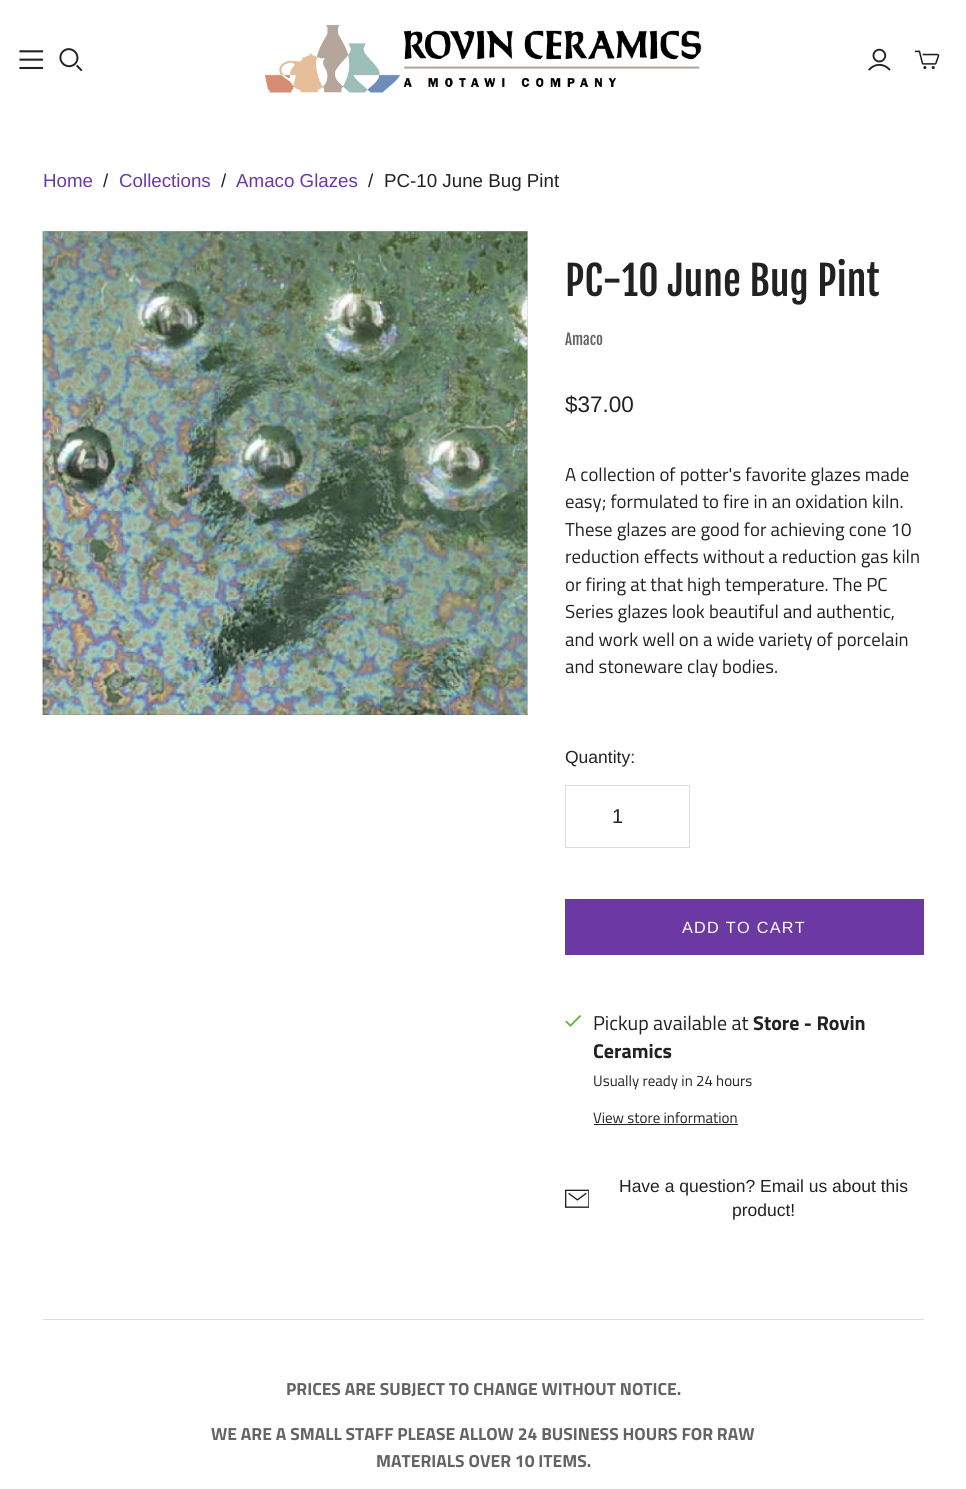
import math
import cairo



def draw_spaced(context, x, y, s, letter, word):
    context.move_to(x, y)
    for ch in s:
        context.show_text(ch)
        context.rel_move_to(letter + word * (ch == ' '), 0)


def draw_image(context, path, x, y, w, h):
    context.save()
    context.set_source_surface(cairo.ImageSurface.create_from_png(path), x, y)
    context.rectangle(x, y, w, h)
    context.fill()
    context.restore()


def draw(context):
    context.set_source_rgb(1, 1, 1)
    context.paint()
    draw_image(context, "images/1.png", 265, 25, 437, 68)
    draw_image(context, "images/2.png", 19, 50, 25, 20)
    draw_image(context, "images/3.png", 59, 48, 24, 24)
    draw_image(context, "images/4.png", 868, 48, 23, 23)
    draw_image(context, "images/5.png", 915, 50, 25, 20)
    draw_image(context, "images/6.png", 42, 231, 486, 484)
    context.rectangle(43.5, 231.5, 484, 483)
    context.set_source_rgba(0, 0, 0, 0.1)
    context.set_line_width(1)
    context.stroke()
    context.rectangle(565.5, 785.5, 124, 62)
    context.set_source_rgb(221 / 255, 221 / 255, 221 / 255)
    context.stroke()
    context.set_source_rgb(108 / 255, 57 / 255, 164 / 255)
    context.rectangle(565, 899, 359, 56)
    context.fill()
    draw_image(context, "images/7.png", 565, 1015, 16, 12)
    context.set_source_rgb(34 / 255, 34 / 255, 34 / 255)
    context.rectangle(594, 1124, 144, 1)
    context.fill()
    draw_image(context, "images/8.png", 565, 1189, 24, 19)
    context.set_source_rgb(221 / 255, 221 / 255, 221 / 255)
    context.rectangle(43, 1319, 881, 1)
    context.fill()
    context.select_font_face("Liberation Sans")
    context.set_font_size(18.75)
    context.set_source_rgb(108 / 255, 57 / 255, 164 / 255)
    context.move_to(43, 187)
    context.show_text("Home")
    context.set_source_rgb(34 / 255, 34 / 255, 34 / 255)
    context.move_to(103, 187)
    context.show_text("/")
    context.set_source_rgb(108 / 255, 57 / 255, 164 / 255)
    context.move_to(119, 187)
    context.show_text("Collections")
    context.set_source_rgb(34 / 255, 34 / 255, 34 / 255)
    context.move_to(221, 187)
    context.show_text("/")
    context.set_source_rgb(108 / 255, 57 / 255, 164 / 255)
    context.move_to(236, 187)
    context.show_text("Amaco Glazes")
    context.set_source_rgb(34 / 255, 34 / 255, 34 / 255)
    context.move_to(368, 187)
    context.show_text("/")
    context.move_to(384, 187)
    context.show_text("PC-10 June Bug Pint")
    context.select_font_face("Fjalla One")
    context.set_font_size(40)
    context.move_to(565, 296)
    context.show_text("PC-10 June Bug Pint")
    context.set_font_size(15)
    context.set_source_rgb(100 / 255, 100 / 255, 100 / 255)
    context.move_to(565, 345)
    context.show_text("Amaco")
    context.select_font_face("Liberation Sans")
    context.set_font_size(22.5)
    context.set_source_rgb(34 / 255, 34 / 255, 34 / 255)
    context.move_to(565, 412)
    context.show_text("$37.00")
    context.select_font_face("Titillium Web")
    context.set_font_size(18.75)
    context.move_to(565, 481)
    context.show_text("A collection of potter's favorite glazes made")
    context.move_to(565, 508)
    context.show_text("easy; formulated to fire in an oxidation kiln.")
    context.move_to(565, 536)
    context.show_text("These glazes are good for achieving cone 10")
    context.move_to(565, 563)
    context.show_text("reduction effects without a reduction gas kiln")
    context.move_to(565, 591)
    context.show_text("or firing at that high temperature. The PC")
    context.move_to(565, 618)
    context.show_text("Series glazes look beautiful and authentic,")
    context.move_to(565, 646)
    context.show_text("and work well on a wide variety of porcelain")
    context.move_to(565, 673)
    context.show_text("and stoneware clay bodies.")
    context.select_font_face("Liberation Sans")
    context.set_font_size(17.5)
    context.move_to(565, 763)
    context.show_text("Quantity:")
    context.set_font_size(20)
    context.move_to(612, 823)
    context.show_text("1")
    context.set_font_size(16.25)
    context.set_source_rgb(1, 1, 1)
    draw_spaced(context, 682, 933, "ADD TO CART", 1.25, 0)
    context.select_font_face("Titillium Web")
    context.set_font_size(20)
    context.set_source_rgb(34 / 255, 34 / 255, 34 / 255)
    context.move_to(593, 1030)
    context.show_text("Pickup available at")
    context.select_font_face("Titillium Web", cairo.FontSlant.NORMAL, cairo.FontWeight.BOLD)
    context.move_to(753, 1030)
    context.show_text("Store - Rovin")
    context.move_to(593, 1058)
    context.show_text("Ceramics")
    context.select_font_face("Titillium Web")
    context.set_font_size(15)
    context.move_to(593, 1086)
    context.show_text("Usually ready in 24 hours")
    context.move_to(593, 1123)
    context.show_text("View store information")
    context.select_font_face("Liberation Sans")
    context.set_font_size(17.5)
    context.move_to(619, 1192)
    context.show_text("Have a question? Email us about this")
    context.move_to(732, 1216)
    context.show_text("product!")
    context.select_font_face("Titillium Web", cairo.FontSlant.NORMAL, cairo.FontWeight.BOLD)
    context.set_source_rgb(100 / 255, 100 / 255, 100 / 255)
    context.move_to(286, 1395)
    context.show_text("PRICES ARE SUBJECT TO CHANGE WITHOUT NOTICE.")
    context.move_to(211, 1440)
    context.show_text("WE ARE A SMALL STAFF PLEASE ALLOW 24 BUSINESS HOURS FOR RAW")
    context.move_to(376, 1467)
    context.show_text("MATERIALS OVER 10 ITEMS.")


surface = cairo.ImageSurface(cairo.Format.RGB24, 966, 1489)
context = cairo.Context(surface)
options = cairo.FontOptions()
options.set_hint_metrics(cairo.HintMetrics.OFF)
options.set_hint_style(cairo.HintStyle.NONE)
context.set_font_options(options)
context.set_miter_limit(4)
draw(context)
surface.write_to_png("out.png")
